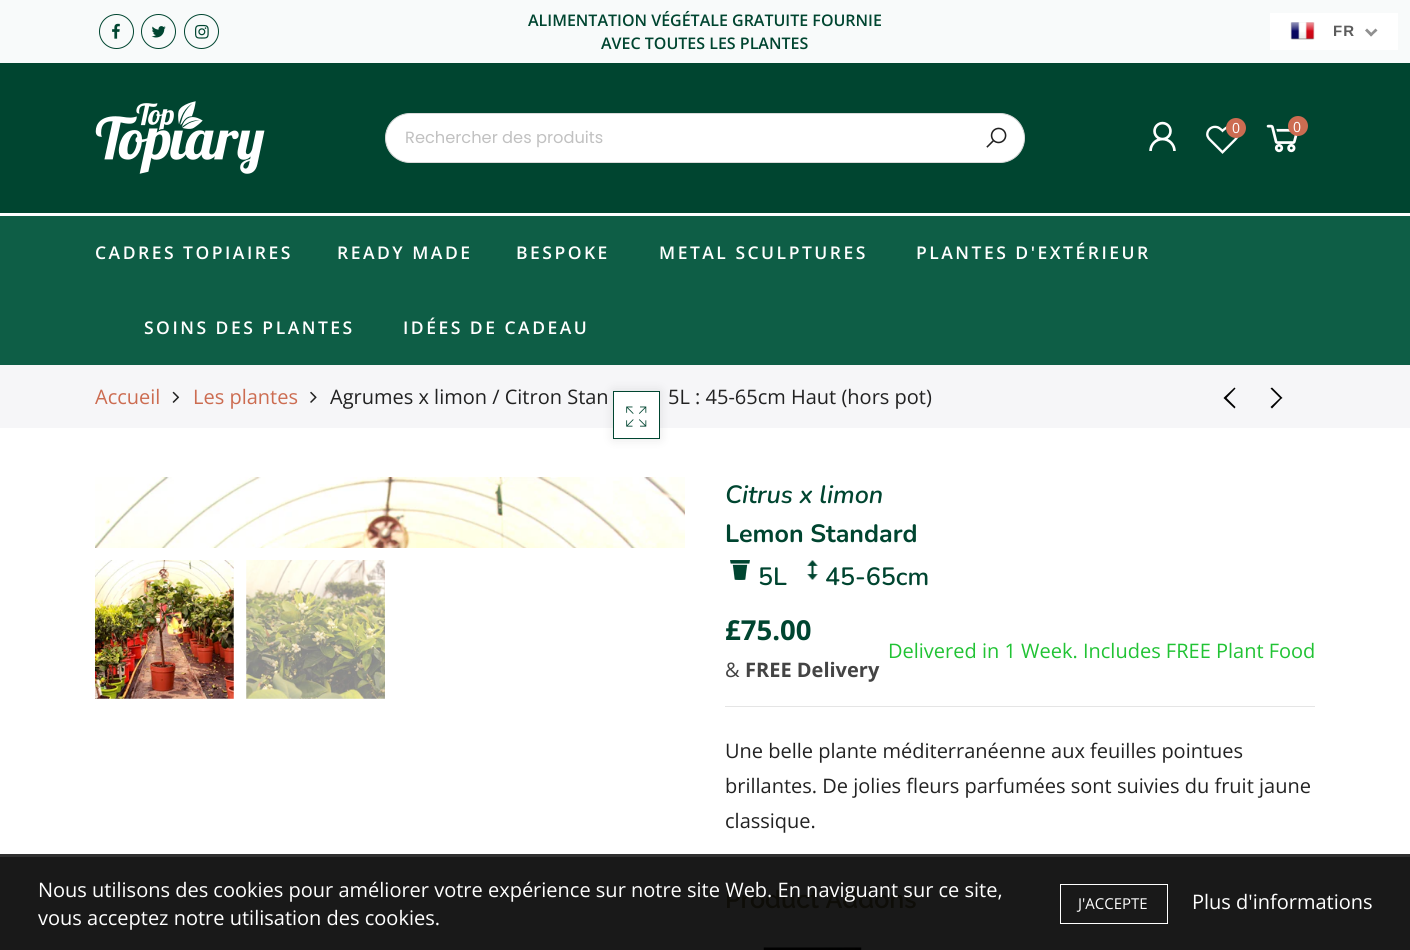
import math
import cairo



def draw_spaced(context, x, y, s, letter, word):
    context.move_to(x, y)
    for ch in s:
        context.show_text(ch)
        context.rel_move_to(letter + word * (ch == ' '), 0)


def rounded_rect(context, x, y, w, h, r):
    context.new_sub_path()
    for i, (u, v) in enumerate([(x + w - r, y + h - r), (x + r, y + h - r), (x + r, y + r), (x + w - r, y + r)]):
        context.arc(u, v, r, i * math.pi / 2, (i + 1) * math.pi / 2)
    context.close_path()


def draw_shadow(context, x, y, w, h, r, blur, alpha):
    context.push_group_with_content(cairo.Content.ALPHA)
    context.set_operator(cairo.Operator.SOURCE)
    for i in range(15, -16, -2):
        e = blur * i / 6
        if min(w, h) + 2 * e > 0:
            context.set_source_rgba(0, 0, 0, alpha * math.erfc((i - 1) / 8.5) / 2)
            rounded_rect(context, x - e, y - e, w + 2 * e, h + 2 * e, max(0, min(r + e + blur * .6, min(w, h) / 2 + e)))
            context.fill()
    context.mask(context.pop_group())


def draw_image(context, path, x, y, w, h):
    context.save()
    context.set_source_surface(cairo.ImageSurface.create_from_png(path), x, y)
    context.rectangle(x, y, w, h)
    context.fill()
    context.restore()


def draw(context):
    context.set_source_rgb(1, 1, 1)
    context.paint()
    context.set_source_rgb(25 / 255, 25 / 255, 25 / 255)
    context.rectangle(0, 857, 1410, 93)
    context.fill()
    context.set_source_rgb(248 / 255, 250 / 255, 250 / 255)
    context.rectangle(0, 0, 1410, 63)
    context.fill()
    context.arc(116.5, 31.5, 17, 0, 2 * math.pi)
    context.set_source_rgb(0, 69 / 255, 48 / 255)
    context.set_line_width(1)
    context.stroke()
    draw_image(context, "images/1.png", 112, 23, 8, 16)
    context.arc(158.5, 31.5, 17, 0, 2 * math.pi)
    context.stroke()
    draw_image(context, "images/2.png", 151, 26, 15, 12)
    context.arc(201.5, 31.5, 17, 0, 2 * math.pi)
    context.stroke()
    draw_image(context, "images/3.png", 195, 24, 14, 15)
    context.rectangle(0, 63, 1410, 150)
    context.fill()
    draw_image(context, "images/4.png", 95, 101, 170, 73)
    draw_image(context, "images/5.png", 1149, 121, 27, 30)
    draw_image(context, "images/6.png", 1206, 125, 33, 29)
    context.set_source_rgb(204 / 255, 108 / 255, 81 / 255)
    context.arc(1236, 128, 10, 0, 2 * math.pi)
    context.fill()
    draw_image(context, "images/7.png", 1266, 124, 32, 29)
    context.arc(1298, 126, 10, 0, 2 * math.pi)
    context.fill()
    context.set_source_rgb(1, 1, 1)
    rounded_rect(context, 385.5, 113.5, 639, 49, 24.5)
    context.fill_preserve()
    context.set_source_rgb(218 / 255, 218 / 255, 218 / 255)
    context.stroke()
    draw_image(context, "images/8.png", 986, 127, 21, 21)
    context.set_source_rgb(14 / 255, 94 / 255, 70 / 255)
    context.rectangle(0, 216, 1410, 149)
    context.fill()
    context.set_source_rgb(246 / 255, 246 / 255, 248 / 255)
    context.rectangle(0, 365, 1410, 63)
    context.fill()
    draw_image(context, "images/9.png", 172, 391, 8, 12)
    draw_image(context, "images/10.png", 310, 391, 7, 12)
    context.set_source_rgb(0, 0, 0)
    context.new_path()
    context.move_to(1225, 396.5)
    context.line_to(1223.5, 398)
    context.line_to(1234.5, 408.5)
    context.line_to(1235.5, 407)
    context.line_to(1226.5, 398)
    context.line_to(1235.5, 388.5)
    context.line_to(1234.5, 387.5)
    context.close_path()
    context.move_to(1281, 399)
    context.line_to(1282.5, 398)
    context.line_to(1272, 387.5)
    context.line_to(1270.5, 388.5)
    context.line_to(1280, 398)
    context.line_to(1270.5, 407)
    context.line_to(1272, 408.5)
    context.close_path()
    context.fill()
    context.set_source_rgb(0, 0, 0)
    draw_shadow(context, 613, 391, 47, 48, 0, 5.5, 0.1)
    context.set_source_rgb(1, 1, 1)
    context.rectangle(613.5, 391.5, 46, 47)
    context.fill_preserve()
    context.set_source_rgb(0, 69 / 255, 48 / 255)
    context.stroke()
    draw_image(context, "images/11.png", 626, 406, 21, 21)
    draw_image(context, "images/12.png", 95, 477, 590, 71)
    draw_image(context, "images/13.png", 95, 560, 139, 139)
    draw_image(context, "images/14.png", 246, 560, 139, 139)
    draw_image(context, "images/15.png", 730, 560, 20, 20)
    draw_image(context, "images/16.png", 807, 560, 11, 20)
    context.set_source_rgb(229 / 255, 229 / 255, 229 / 255)
    context.rectangle(725, 706, 590, 1)
    context.fill()
    draw_image(context, "images/17.png", 763, 947, 99, 3)
    context.set_source_rgb(48 / 255, 48 / 255, 48 / 255)
    context.rectangle(0, 854, 1410, 3)
    context.fill()
    context.rectangle(1060.5, 884.5, 107, 39)
    context.set_source_rgb(1, 1, 1)
    context.stroke()
    context.rectangle(1270, 13, 128, 37)
    context.fill()
    draw_image(context, "images/18.png", 1290, 22, 25, 18)
    context.set_source_rgb(144 / 255, 144 / 255, 144 / 255)
    context.new_path()
    context.move_to(1375.5, 28.5)
    context.line_to(1377.5, 30.5)
    context.line_to(1371, 36.5)
    context.line_to(1369.5, 34.5)
    context.close_path()
    context.fill()
    context.new_path()
    context.move_to(1367, 28.5)
    context.line_to(1373, 34.5)
    context.line_to(1371, 36.5)
    context.line_to(1365, 30.5)
    context.close_path()
    context.fill()
    context.select_font_face("Open Sans SemiBold")
    context.set_font_size(16)
    context.set_source_rgb(0, 69 / 255, 48 / 255)
    context.move_to(528, 26)
    context.show_text("ALIMENTATION VÉGÉTALE GRATUITE FOURNIE")
    context.move_to(601, 49)
    context.show_text("AVEC TOUTES LES PLANTES")
    context.select_font_face("Open Sans")
    context.set_font_size(14)
    context.set_source_rgb(1, 1, 1)
    context.move_to(1232, 133)
    context.show_text("0")
    context.move_to(1293, 132)
    context.show_text("0")
    context.select_font_face("Poppins")
    context.set_font_size(16.25)
    context.set_source_rgb(193 / 255, 193 / 255, 193 / 255)
    context.move_to(405, 143)
    context.show_text("Rechercher des produits")
    context.select_font_face("Open Sans SemiBold")
    context.set_font_size(17.5)
    context.set_source_rgb(1, 1, 1)
    draw_spaced(context, 95, 259, "CADRES TOPIAIRES", 2.5, 0)
    draw_spaced(context, 337, 259, "READY MADE", 2.5, 0)
    draw_spaced(context, 516, 259, "BESPOKE", 2.5, 0)
    draw_spaced(context, 659, 259, "METAL SCULPTURES", 2.5, 0)
    draw_spaced(context, 916, 259, "PLANTES D'EXTÉRIEUR", 2.5, 0)
    draw_spaced(context, 144, 334, "SOINS DES PLANTES", 2.5, 0)
    draw_spaced(context, 403, 334, "IDÉES DE CADEAU", 2.5, 0)
    context.select_font_face("Open Sans")
    context.set_font_size(20)
    context.set_source_rgb(204 / 255, 108 / 255, 81 / 255)
    context.move_to(95, 404)
    context.show_text("Accueil")
    context.move_to(193, 404)
    context.show_text("Les plantes")
    context.set_source_rgb(34 / 255, 34 / 255, 34 / 255)
    context.move_to(330, 404)
    context.show_text("Agrumes x limon / Citron Stan")
    context.move_to(668, 404)
    context.show_text("5L : 45-65cm Haut (hors pot)")
    context.select_font_face("Nunito SemiBold", cairo.FontSlant.ITALIC)
    context.set_font_size(25)
    context.set_source_rgb(0, 69 / 255, 48 / 255)
    context.move_to(725, 503)
    context.show_text("Citrus x limon")
    context.select_font_face("Nunito", cairo.FontSlant.NORMAL, cairo.FontWeight.BOLD)
    context.move_to(725, 542)
    context.show_text("Lemon Standard")
    context.select_font_face("Nunito SemiBold")
    context.move_to(758, 585)
    context.show_text("5L")
    context.move_to(825, 585)
    context.show_text("45-65cm")
    context.select_font_face("Open Sans", cairo.FontSlant.NORMAL, cairo.FontWeight.BOLD)
    context.set_font_size(27.5)
    context.move_to(725, 640)
    context.show_text("£75.00")
    context.select_font_face("Open Sans")
    context.set_font_size(20)
    context.set_source_rgb(68 / 255, 68 / 255, 68 / 255)
    context.move_to(725, 677)
    context.show_text("&")
    context.select_font_face("Open Sans", cairo.FontSlant.NORMAL, cairo.FontWeight.BOLD)
    context.move_to(745, 677)
    context.show_text("FREE Delivery")
    context.select_font_face("Open Sans")
    context.set_source_rgb(33 / 255, 195 / 255, 52 / 255)
    context.move_to(888, 658)
    context.show_text("Delivered in 1 Week. Includes FREE Plant Food")
    context.set_source_rgb(34 / 255, 34 / 255, 34 / 255)
    context.move_to(725, 758)
    context.show_text("Une belle plante méditerranéenne aux feuilles pointues")
    context.move_to(725, 793)
    context.show_text("brillantes. De jolies fleurs parfumées sont suivies du fruit jaune")
    context.move_to(725, 828)
    context.show_text("classique.")
    context.select_font_face("Raleway SemiBold")
    context.set_font_size(25)
    context.set_source_rgb(14 / 255, 13 / 255, 8 / 255)
    context.move_to(725, 908)
    context.show_text("Product Addons")
    context.select_font_face("Open Sans")
    context.set_font_size(20)
    context.set_source_rgb(1, 1, 1)
    context.move_to(38, 897)
    context.show_text("Nous utilisons des cookies pour améliorer votre expérience sur notre site Web. En naviguant sur ce site,")
    context.move_to(38, 925)
    context.show_text("vous acceptez notre utilisation des cookies.")
    context.set_font_size(15)
    context.move_to(1078, 909)
    context.show_text("J'ACCEPTE")
    context.set_font_size(20)
    context.move_to(1192, 909)
    context.show_text("Plus d'informations")
    context.select_font_face("Liberation Sans", cairo.FontSlant.NORMAL, cairo.FontWeight.BOLD)
    context.set_font_size(15)
    context.set_source_rgb(92 / 255, 92 / 255, 92 / 255)
    draw_spaced(context, 1333, 36, "FR", 1, 0)


surface = cairo.ImageSurface(cairo.Format.RGB24, 1410, 950)
context = cairo.Context(surface)
options = cairo.FontOptions()
options.set_hint_metrics(cairo.HintMetrics.OFF)
options.set_hint_style(cairo.HintStyle.NONE)
context.set_font_options(options)
context.set_miter_limit(4)
draw(context)
surface.write_to_png("out.png")
